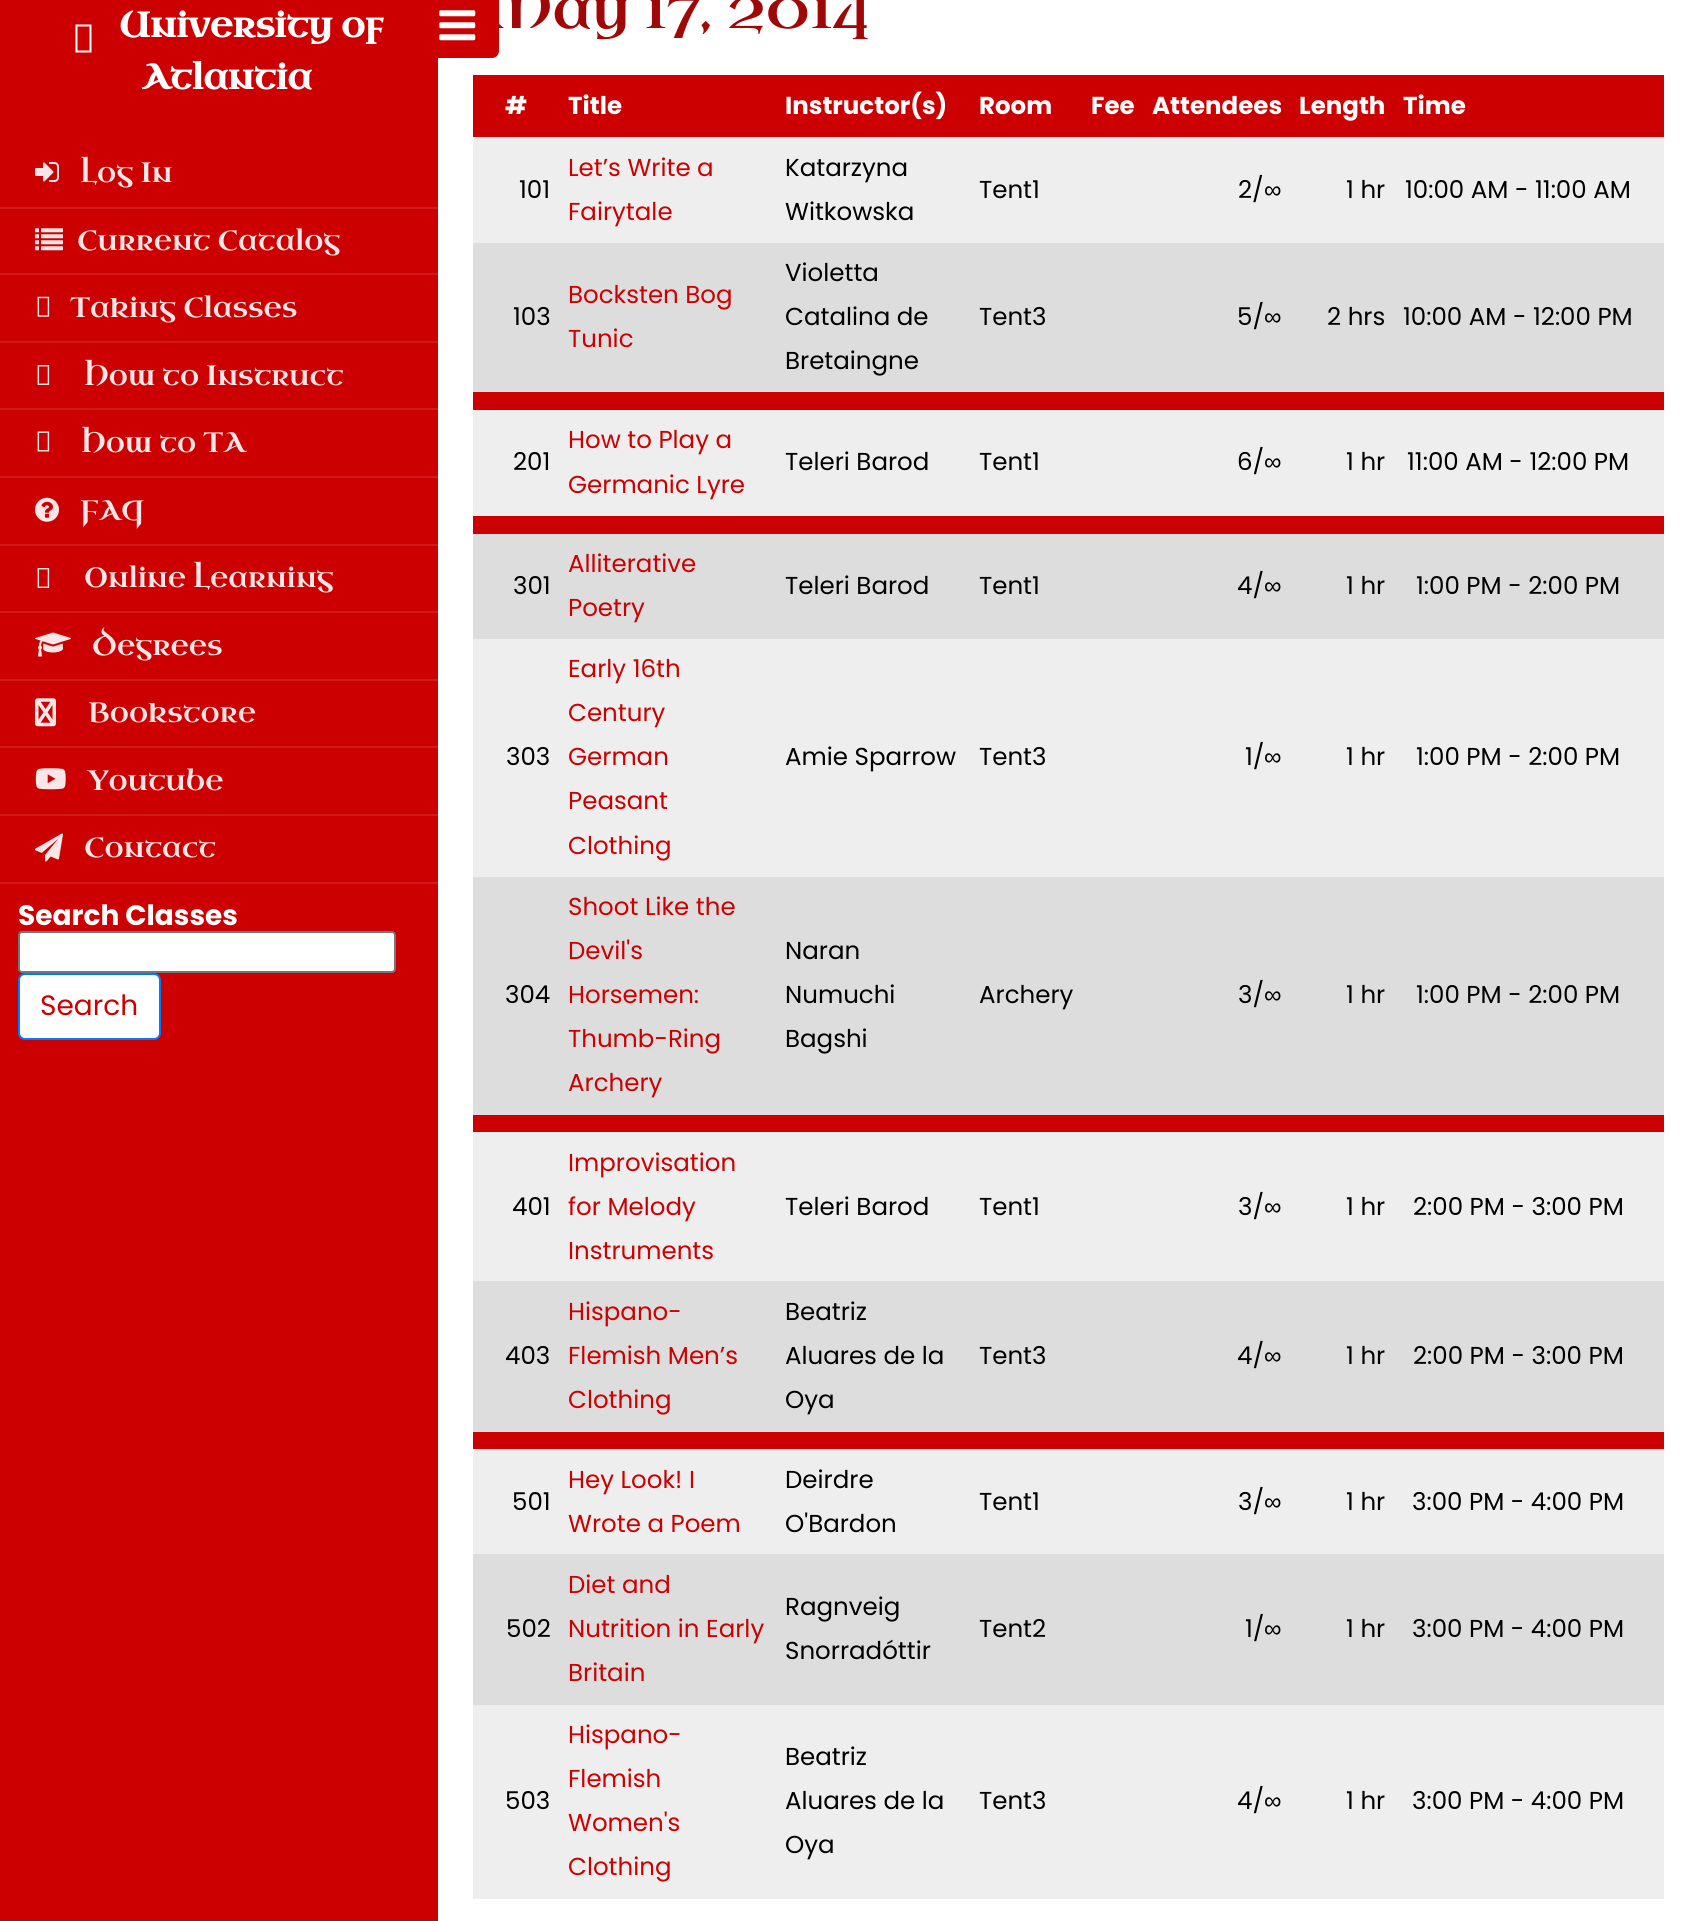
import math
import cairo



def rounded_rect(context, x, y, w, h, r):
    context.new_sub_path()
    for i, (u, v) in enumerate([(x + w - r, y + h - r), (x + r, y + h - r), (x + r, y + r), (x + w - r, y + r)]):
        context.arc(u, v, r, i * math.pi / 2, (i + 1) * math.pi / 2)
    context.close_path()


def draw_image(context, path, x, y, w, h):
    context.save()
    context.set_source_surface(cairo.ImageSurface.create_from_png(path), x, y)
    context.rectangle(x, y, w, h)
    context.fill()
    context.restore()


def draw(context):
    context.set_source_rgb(1, 1, 1)
    context.paint()
    context.set_source_rgb(204 / 255, 0, 0)
    context.rectangle(0, 0, 438, 1921)
    context.fill()
    context.set_source_rgb(1, 1, 1)
    context.new_path()
    context.move_to(75.5, 52.5)
    context.line_to(75.5, 24.5)
    context.line_to(91.5, 24.5)
    context.line_to(91.5, 52.5)
    context.close_path()
    context.move_to(77.5, 50.5)
    context.line_to(89.5, 50.5)
    context.line_to(89.5, 26.5)
    context.line_to(77.5, 26.5)
    context.close_path()
    context.fill()
    context.set_source_rgb(209 / 255, 26 / 255, 26 / 255)
    context.rectangle(0, 207, 438, 2)
    context.fill()
    draw_image(context, "images/2.png", 35, 162, 24, 20)
    context.rectangle(0, 273, 438, 2)
    context.fill()
    draw_image(context, "images/3.png", 35, 228, 28, 23)
    context.rectangle(0, 341, 438, 2)
    context.fill()
    draw_image(context, "images/4.png", 37, 296, 13, 21)
    context.rectangle(0, 408, 438, 2)
    context.fill()
    draw_image(context, "images/5.png", 37, 365, 13, 20)
    context.rectangle(0, 476, 438, 2)
    context.fill()
    draw_image(context, "images/6.png", 37, 431, 13, 21)
    context.rectangle(0, 544, 438, 2)
    context.fill()
    draw_image(context, "images/7.png", 35, 497, 24, 25)
    context.rectangle(0, 611, 438, 2)
    context.fill()
    draw_image(context, "images/5.png", 37, 568, 13, 20)
    context.rectangle(0, 679, 438, 2)
    context.fill()
    draw_image(context, "images/8.png", 35, 632, 36, 25)
    context.rectangle(0, 746, 438, 2)
    context.fill()
    draw_image(context, "images/9.png", 35, 698, 21, 29)
    context.rectangle(0, 814, 438, 2)
    context.fill()
    draw_image(context, "images/10.png", 35, 768, 31, 22)
    context.rectangle(0, 882, 438, 2)
    context.fill()
    draw_image(context, "images/11.png", 35, 833, 28, 29)
    context.set_source_rgb(1, 1, 1)
    rounded_rect(context, 19, 932, 376, 40, 3)
    context.fill_preserve()
    context.set_source_rgb(118 / 255, 118 / 255, 118 / 255)
    context.stroke()
    context.set_source_rgb(1, 1, 1)
    rounded_rect(context, 19, 974, 141, 65, 6)
    context.fill_preserve()
    context.set_source_rgb(0, 123 / 255, 1)
    context.stroke()
    context.set_source_rgb(204 / 255, 0, 0)
    context.rectangle(473, 75, 1191, 62)
    context.fill()
    context.set_source_rgb(238 / 255, 238 / 255, 238 / 255)
    context.rectangle(473, 137, 1191, 106)
    context.fill()
    context.set_source_rgb(221 / 255, 221 / 255, 221 / 255)
    context.rectangle(473, 243, 1191, 149)
    context.fill()
    context.set_source_rgb(204 / 255, 0, 0)
    context.rectangle(473, 392, 1191, 18)
    context.fill()
    context.set_source_rgb(238 / 255, 238 / 255, 238 / 255)
    context.rectangle(473, 410, 1191, 106)
    context.fill()
    context.set_source_rgb(204 / 255, 0, 0)
    context.rectangle(473, 516, 1191, 18)
    context.fill()
    context.set_source_rgb(221 / 255, 221 / 255, 221 / 255)
    context.rectangle(473, 534, 1191, 105)
    context.fill()
    context.set_source_rgb(238 / 255, 238 / 255, 238 / 255)
    context.rectangle(473, 639, 1191, 238)
    context.fill()
    context.set_source_rgb(221 / 255, 221 / 255, 221 / 255)
    context.rectangle(473, 877, 1191, 238)
    context.fill()
    context.set_source_rgb(204 / 255, 0, 0)
    context.rectangle(473, 1115, 1191, 17)
    context.fill()
    context.set_source_rgb(238 / 255, 238 / 255, 238 / 255)
    context.rectangle(473, 1132, 1191, 149)
    context.fill()
    context.set_source_rgb(221 / 255, 221 / 255, 221 / 255)
    context.rectangle(473, 1281, 1191, 151)
    context.fill()
    context.set_source_rgb(204 / 255, 0, 0)
    context.rectangle(473, 1432, 1191, 17)
    context.fill()
    context.set_source_rgb(238 / 255, 238 / 255, 238 / 255)
    context.rectangle(473, 1449, 1191, 105)
    context.fill()
    context.set_source_rgb(221 / 255, 221 / 255, 221 / 255)
    context.rectangle(473, 1554, 1191, 151)
    context.fill()
    context.set_source_rgb(238 / 255, 238 / 255, 238 / 255)
    context.rectangle(473, 1705, 1191, 194)
    context.fill()
    context.select_font_face("Uncial Antiqua", cairo.FontSlant.NORMAL, cairo.FontWeight.BOLD)
    context.set_font_size(35)
    context.set_source_rgb(1, 1, 1)
    context.move_to(119, 37)
    context.show_text("University of")
    context.move_to(142, 89)
    context.show_text("Atlantia")
    context.select_font_face("Uncial Antiqua")
    context.set_font_size(28)
    context.set_source_rgb(250 / 255, 230 / 255, 230 / 255)
    context.move_to(80, 182)
    context.show_text("Log In")
    context.move_to(77, 250)
    context.show_text("Current Catalog")
    context.move_to(70, 317)
    context.show_text("Taking Classes")
    context.move_to(84, 385)
    context.show_text("How to Instruct")
    context.move_to(81, 452)
    context.show_text("How to TA")
    context.move_to(80, 520)
    context.show_text("FAQ")
    context.move_to(84, 587)
    context.show_text("Online Learning")
    context.move_to(92, 655)
    context.show_text("Degrees")
    context.move_to(88, 722)
    context.show_text("Bookstore")
    context.move_to(88, 790)
    context.show_text("Youtube")
    context.move_to(84, 857)
    context.show_text("Contact")
    context.select_font_face("Poppins", cairo.FontSlant.NORMAL, cairo.FontWeight.BOLD)
    context.set_source_rgb(1, 1, 1)
    context.move_to(18, 925)
    context.show_text("Search Classes")
    context.select_font_face("Poppins")
    context.set_source_rgb(204 / 255, 0, 0)
    context.move_to(40, 1015)
    context.show_text("Search")
    context.select_font_face("Uncial Antiqua")
    context.set_font_size(56)
    context.set_source_rgb(160 / 255, 7 / 255, 7 / 255)
    context.move_to(481, 28)
    context.show_text("May 17, 2014")
    context.set_source_rgb(204 / 255, 0, 0)
    rounded_rect(context, 418, -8, 80, 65, 6)
    context.fill_preserve()
    context.stroke()
    draw_image(context, "images/1.png", 439, 10, 37, 31)
    context.select_font_face("Poppins", cairo.FontSlant.NORMAL, cairo.FontWeight.BOLD)
    context.set_font_size(24.5)
    context.set_source_rgb(1, 1, 1)
    context.move_to(505, 114)
    context.show_text("#")
    context.move_to(568, 114)
    context.show_text("Title")
    context.move_to(785, 114)
    context.show_text("Instructor(s)")
    context.move_to(979, 114)
    context.show_text("Room")
    context.move_to(1091, 114)
    context.show_text("Fee")
    context.move_to(1152, 114)
    context.show_text("Attendees")
    context.move_to(1299, 114)
    context.show_text("Length")
    context.move_to(1403, 114)
    context.show_text("Time")
    context.select_font_face("Poppins")
    context.set_source_rgb(0, 0, 0)
    context.move_to(519, 198)
    context.show_text("101")
    context.set_source_rgb(204 / 255, 0, 0)
    context.move_to(568, 176)
    context.show_text("Let’s Write a")
    context.move_to(568, 220)
    context.show_text("Fairytale")
    context.set_source_rgb(0, 0, 0)
    context.move_to(785, 176)
    context.show_text("Katarzyna")
    context.move_to(785, 220)
    context.show_text("Witkowska")
    context.move_to(979, 198)
    context.show_text("Tent1")
    context.move_to(1238, 198)
    context.show_text("2/")
    context.select_font_face("Liberation Sans")
    context.move_to(1264, 198)
    context.show_text("∞")
    context.select_font_face("Poppins")
    context.move_to(1346, 198)
    context.show_text("1 hr")
    context.move_to(1405, 198)
    context.show_text("10:00 AM - 11:00 AM")
    context.move_to(513, 325)
    context.show_text("103")
    context.set_source_rgb(204 / 255, 0, 0)
    context.move_to(568, 303)
    context.show_text("Bocksten Bog")
    context.move_to(568, 347)
    context.show_text("Tunic")
    context.set_source_rgb(0, 0, 0)
    context.move_to(785, 281)
    context.show_text("Violetta")
    context.move_to(785, 325)
    context.show_text("Catalina de")
    context.move_to(785, 369)
    context.show_text("Bretaingne")
    context.move_to(979, 325)
    context.show_text("Tent3")
    context.move_to(1237, 325)
    context.show_text("5/")
    context.select_font_face("Liberation Sans")
    context.move_to(1264, 325)
    context.show_text("∞")
    context.select_font_face("Poppins")
    context.move_to(1327, 325)
    context.show_text("2 hrs")
    context.move_to(1403, 325)
    context.show_text("10:00 AM - 12:00 PM")
    context.move_to(513, 470)
    context.show_text("201")
    context.set_source_rgb(204 / 255, 0, 0)
    context.move_to(568, 448)
    context.show_text("How to Play a")
    context.move_to(568, 493)
    context.show_text("Germanic Lyre")
    context.set_source_rgb(0, 0, 0)
    context.move_to(785, 470)
    context.show_text("Teleri Barod")
    context.move_to(979, 470)
    context.show_text("Tent1")
    context.move_to(1237, 470)
    context.show_text("6/")
    context.select_font_face("Liberation Sans")
    context.move_to(1264, 470)
    context.show_text("∞")
    context.select_font_face("Poppins")
    context.move_to(1346, 470)
    context.show_text("1 hr")
    context.move_to(1407, 470)
    context.show_text("11:00 AM - 12:00 PM")
    context.move_to(513, 594)
    context.show_text("301")
    context.set_source_rgb(204 / 255, 0, 0)
    context.move_to(568, 572)
    context.show_text("Alliterative")
    context.move_to(568, 616)
    context.show_text("Poetry")
    context.set_source_rgb(0, 0, 0)
    context.move_to(785, 594)
    context.show_text("Teleri Barod")
    context.move_to(979, 594)
    context.show_text("Tent1")
    context.move_to(1237, 594)
    context.show_text("4/")
    context.select_font_face("Liberation Sans")
    context.move_to(1264, 594)
    context.show_text("∞")
    context.select_font_face("Poppins")
    context.move_to(1346, 594)
    context.show_text("1 hr")
    context.move_to(1416, 594)
    context.show_text("1:00 PM - 2:00 PM")
    context.move_to(506, 765)
    context.show_text("303")
    context.set_source_rgb(204 / 255, 0, 0)
    context.move_to(568, 677)
    context.show_text("Early 16th")
    context.move_to(568, 721)
    context.show_text("Century")
    context.move_to(568, 765)
    context.show_text("German")
    context.move_to(568, 809)
    context.show_text("Peasant")
    context.move_to(568, 854)
    context.show_text("Clothing")
    context.set_source_rgb(0, 0, 0)
    context.move_to(785, 765)
    context.show_text("Amie Sparrow")
    context.move_to(979, 765)
    context.show_text("Tent3")
    context.move_to(1245, 765)
    context.show_text("1/")
    context.select_font_face("Liberation Sans")
    context.move_to(1264, 765)
    context.show_text("∞")
    context.select_font_face("Poppins")
    context.move_to(1346, 765)
    context.show_text("1 hr")
    context.move_to(1416, 765)
    context.show_text("1:00 PM - 2:00 PM")
    context.move_to(505, 1003)
    context.show_text("304")
    context.set_source_rgb(204 / 255, 0, 0)
    context.move_to(568, 915)
    context.show_text("Shoot Like the")
    context.move_to(568, 959)
    context.show_text("Devil's")
    context.move_to(568, 1003)
    context.show_text("Horsemen:")
    context.move_to(568, 1047)
    context.show_text("Thumb-Ring")
    context.move_to(568, 1091)
    context.show_text("Archery")
    context.set_source_rgb(0, 0, 0)
    context.move_to(785, 959)
    context.show_text("Naran")
    context.move_to(785, 1003)
    context.show_text("Numuchi")
    context.move_to(785, 1047)
    context.show_text("Bagshi")
    context.move_to(979, 1003)
    context.show_text("Archery")
    context.move_to(1238, 1003)
    context.show_text("3/")
    context.select_font_face("Liberation Sans")
    context.move_to(1264, 1003)
    context.show_text("∞")
    context.select_font_face("Poppins")
    context.move_to(1346, 1003)
    context.show_text("1 hr")
    context.move_to(1416, 1003)
    context.show_text("1:00 PM - 2:00 PM")
    context.move_to(512, 1215)
    context.show_text("401")
    context.set_source_rgb(204 / 255, 0, 0)
    context.move_to(568, 1171)
    context.show_text("Improvisation")
    context.move_to(568, 1215)
    context.show_text("for Melody")
    context.move_to(568, 1259)
    context.show_text("Instruments")
    context.set_source_rgb(0, 0, 0)
    context.move_to(785, 1215)
    context.show_text("Teleri Barod")
    context.move_to(979, 1215)
    context.show_text("Tent1")
    context.move_to(1238, 1215)
    context.show_text("3/")
    context.select_font_face("Liberation Sans")
    context.move_to(1264, 1215)
    context.show_text("∞")
    context.select_font_face("Poppins")
    context.move_to(1346, 1215)
    context.show_text("1 hr")
    context.move_to(1413, 1215)
    context.show_text("2:00 PM - 3:00 PM")
    context.move_to(505, 1364)
    context.show_text("403")
    context.set_source_rgb(204 / 255, 0, 0)
    context.move_to(568, 1320)
    context.show_text("Hispano-")
    context.move_to(568, 1364)
    context.show_text("Flemish Men’s")
    context.move_to(568, 1408)
    context.show_text("Clothing")
    context.set_source_rgb(0, 0, 0)
    context.move_to(785, 1320)
    context.show_text("Beatriz")
    context.move_to(785, 1364)
    context.show_text("Aluares de la")
    context.move_to(785, 1408)
    context.show_text("Oya")
    context.move_to(979, 1364)
    context.show_text("Tent3")
    context.move_to(1237, 1364)
    context.show_text("4/")
    context.select_font_face("Liberation Sans")
    context.move_to(1264, 1364)
    context.show_text("∞")
    context.select_font_face("Poppins")
    context.move_to(1346, 1364)
    context.show_text("1 hr")
    context.move_to(1413, 1364)
    context.show_text("2:00 PM - 3:00 PM")
    context.move_to(512, 1510)
    context.show_text("501")
    context.set_source_rgb(204 / 255, 0, 0)
    context.move_to(568, 1488)
    context.show_text("Hey Look! I")
    context.move_to(568, 1532)
    context.show_text("Wrote a Poem")
    context.set_source_rgb(0, 0, 0)
    context.move_to(785, 1488)
    context.show_text("Deirdre")
    context.move_to(785, 1532)
    context.show_text("O'Bardon")
    context.move_to(979, 1510)
    context.show_text("Tent1")
    context.move_to(1238, 1510)
    context.show_text("3/")
    context.select_font_face("Liberation Sans")
    context.move_to(1264, 1510)
    context.show_text("∞")
    context.select_font_face("Poppins")
    context.move_to(1346, 1510)
    context.show_text("1 hr")
    context.move_to(1412, 1510)
    context.show_text("3:00 PM - 4:00 PM")
    context.move_to(506, 1637)
    context.show_text("502")
    context.set_source_rgb(204 / 255, 0, 0)
    context.move_to(568, 1593)
    context.show_text("Diet and")
    context.move_to(568, 1637)
    context.show_text("Nutrition in Early")
    context.move_to(568, 1681)
    context.show_text("Britain")
    context.set_source_rgb(0, 0, 0)
    context.move_to(785, 1615)
    context.show_text("Ragnveig")
    context.move_to(785, 1659)
    context.show_text("Snorradóttir")
    context.move_to(979, 1637)
    context.show_text("Tent2")
    context.move_to(1245, 1637)
    context.show_text("1/")
    context.select_font_face("Liberation Sans")
    context.move_to(1264, 1637)
    context.show_text("∞")
    context.select_font_face("Poppins")
    context.move_to(1346, 1637)
    context.show_text("1 hr")
    context.move_to(1412, 1637)
    context.show_text("3:00 PM - 4:00 PM")
    context.move_to(505, 1809)
    context.show_text("503")
    context.set_source_rgb(204 / 255, 0, 0)
    context.move_to(568, 1743)
    context.show_text("Hispano-")
    context.move_to(568, 1787)
    context.show_text("Flemish")
    context.move_to(568, 1831)
    context.show_text("Women's")
    context.move_to(568, 1875)
    context.show_text("Clothing")
    context.set_source_rgb(0, 0, 0)
    context.move_to(785, 1765)
    context.show_text("Beatriz")
    context.move_to(785, 1809)
    context.show_text("Aluares de la")
    context.move_to(785, 1853)
    context.show_text("Oya")
    context.move_to(979, 1809)
    context.show_text("Tent3")
    context.move_to(1237, 1809)
    context.show_text("4/")
    context.select_font_face("Liberation Sans")
    context.move_to(1264, 1809)
    context.show_text("∞")
    context.select_font_face("Poppins")
    context.move_to(1346, 1809)
    context.show_text("1 hr")
    context.move_to(1412, 1809)
    context.show_text("3:00 PM - 4:00 PM")


surface = cairo.ImageSurface(cairo.Format.RGB24, 1698, 1921)
context = cairo.Context(surface)
options = cairo.FontOptions()
options.set_hint_metrics(cairo.HintMetrics.OFF)
options.set_hint_style(cairo.HintStyle.NONE)
context.set_font_options(options)
context.set_miter_limit(4)
draw(context)
surface.write_to_png("out.png")
